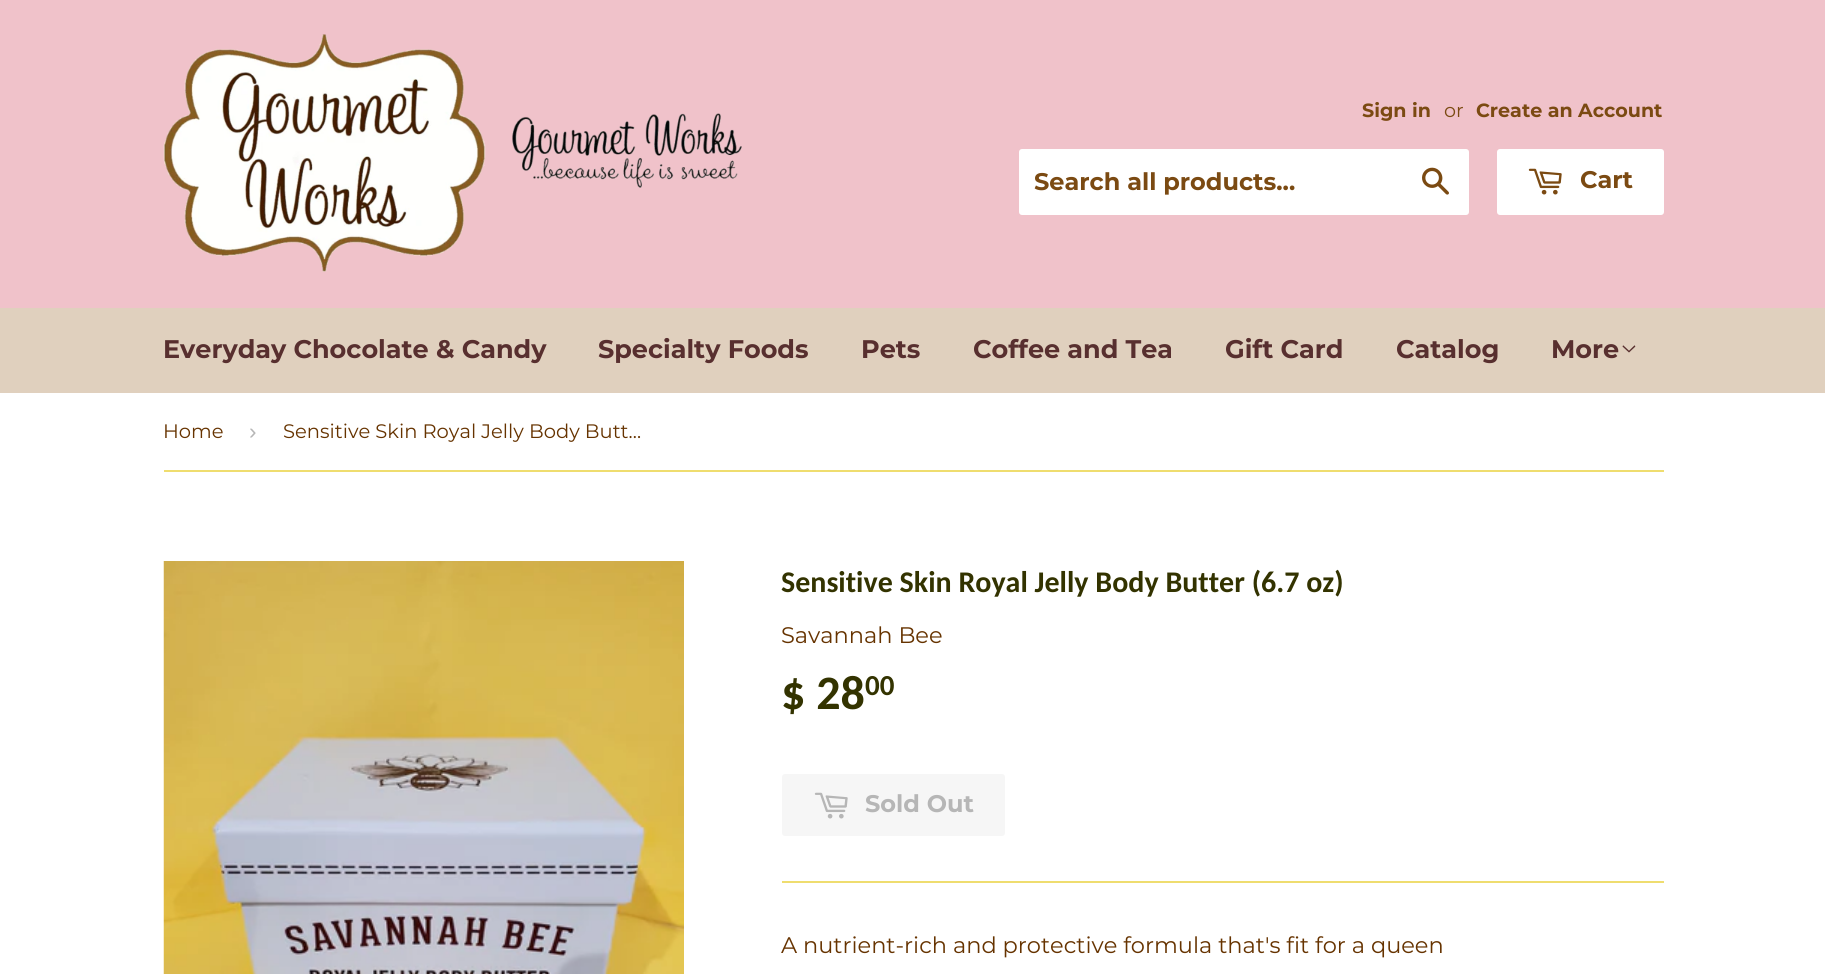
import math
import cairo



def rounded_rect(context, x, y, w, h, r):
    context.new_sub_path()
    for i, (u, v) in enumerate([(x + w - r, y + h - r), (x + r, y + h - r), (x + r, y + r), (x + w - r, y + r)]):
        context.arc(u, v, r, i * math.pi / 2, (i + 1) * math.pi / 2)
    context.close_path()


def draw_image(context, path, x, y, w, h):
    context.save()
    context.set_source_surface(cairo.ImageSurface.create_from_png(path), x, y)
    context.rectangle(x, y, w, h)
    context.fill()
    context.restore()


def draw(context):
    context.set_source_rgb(1, 1, 1)
    context.paint()
    context.set_source_rgb(240 / 255, 194 / 255, 202 / 255)
    context.rectangle(0, 0, 1825, 308)
    context.fill()
    draw_image(context, "images/1.png", 163, 34, 579, 238)
    context.set_source_rgb(1, 1, 1)
    rounded_rect(context, 1019, 149, 450, 66, 3)
    context.fill()
    draw_image(context, "images/2.png", 1422, 167, 27, 28)
    rounded_rect(context, 1497, 149, 167, 66, 3)
    context.fill()
    draw_image(context, "images/3.png", 1528, 168, 34, 27)
    context.set_source_rgb(224 / 255, 208 / 255, 190 / 255)
    context.rectangle(0, 308, 1825, 85)
    context.fill()
    draw_image(context, "images/4.png", 1622, 345, 14, 8)
    context.set_source_rgb(239 / 255, 221 / 255, 111 / 255)
    context.rectangle(164, 470, 1500, 2)
    context.fill()
    draw_image(context, "images/5.png", 163, 561, 521, 413)
    context.set_source_rgb(246 / 255, 246 / 255, 246 / 255)
    rounded_rect(context, 782, 774, 223, 62, 3)
    context.fill()
    draw_image(context, "images/6.png", 814, 792, 34, 27)
    context.set_source_rgb(239 / 255, 221 / 255, 111 / 255)
    context.rectangle(782, 881, 882, 2)
    context.fill()
    context.select_font_face("Montserrat", cairo.FontSlant.NORMAL, cairo.FontWeight.BOLD)
    context.set_font_size(19.1)
    context.set_source_rgb(123 / 255, 74 / 255, 18 / 255)
    context.move_to(1362, 117)
    context.show_text("Sign in")
    context.select_font_face("Montserrat")
    context.move_to(1444, 117)
    context.show_text("or")
    context.select_font_face("Montserrat", cairo.FontSlant.NORMAL, cairo.FontWeight.BOLD)
    context.move_to(1476, 117)
    context.show_text("Create an Account")
    context.set_font_size(24)
    context.move_to(1034, 190)
    context.show_text("Search all products...")
    context.move_to(1580, 188)
    context.show_text("Cart")
    context.set_font_size(25.5)
    context.set_source_rgb(88 / 255, 47 / 255, 47 / 255)
    context.move_to(163, 358)
    context.show_text("Everyday Chocolate & Candy")
    context.move_to(598, 358)
    context.show_text("Specialty Foods")
    context.move_to(861, 358)
    context.show_text("Pets")
    context.move_to(973, 358)
    context.show_text("Coffee and Tea")
    context.move_to(1225, 358)
    context.show_text("Gift Card")
    context.move_to(1396, 358)
    context.show_text("Catalog")
    context.move_to(1551, 358)
    context.show_text("More")
    context.select_font_face("Montserrat")
    context.set_font_size(19.5)
    context.set_source_rgb(102 / 255, 51 / 255, 0)
    context.move_to(163, 438)
    context.show_text("Home")
    context.select_font_face("Liberation Sans")
    context.set_font_size(22.5)
    context.set_source_rgb(182 / 255, 182 / 255, 182 / 255)
    context.move_to(249, 439)
    context.show_text("›")
    context.select_font_face("Montserrat")
    context.set_font_size(19.5)
    context.set_source_rgb(102 / 255, 51 / 255, 0)
    context.move_to(283, 438)
    context.show_text("Sensitive Skin Royal Jelly Body Butt…")
    context.select_font_face("Carlito", cairo.FontSlant.NORMAL, cairo.FontWeight.BOLD)
    context.set_font_size(30)
    context.set_source_rgb(51 / 255, 51 / 255, 0)
    context.move_to(781, 592)
    context.show_text("Sensitive Skin Royal Jelly Body Butter (6.7 oz)")
    context.select_font_face("Montserrat")
    context.set_font_size(22.5)
    context.set_source_rgb(102 / 255, 51 / 255, 0)
    context.move_to(781, 643)
    context.show_text("Savannah Bee")
    context.select_font_face("Carlito", cairo.FontSlant.NORMAL, cairo.FontWeight.BOLD)
    context.set_font_size(48)
    context.set_source_rgb(51 / 255, 51 / 255, 0)
    context.move_to(781, 709)
    context.show_text("$ 28")
    context.set_font_size(29)
    context.move_to(865, 695)
    context.show_text("00")
    context.select_font_face("Montserrat", cairo.FontSlant.NORMAL, cairo.FontWeight.BOLD)
    context.set_font_size(24)
    context.set_source_rgb(182 / 255, 182 / 255, 182 / 255)
    context.move_to(865, 812)
    context.show_text("Sold Out")
    context.select_font_face("Montserrat")
    context.set_font_size(22.5)
    context.set_source_rgb(102 / 255, 51 / 255, 0)
    context.move_to(781, 953)
    context.show_text("A nutrient-rich and protective formula that's fit for a queen")


surface = cairo.ImageSurface(cairo.Format.RGB24, 1825, 974)
context = cairo.Context(surface)
options = cairo.FontOptions()
options.set_hint_metrics(cairo.HintMetrics.OFF)
options.set_hint_style(cairo.HintStyle.NONE)
context.set_font_options(options)
context.set_miter_limit(4)
draw(context)
surface.write_to_png("out.png")
